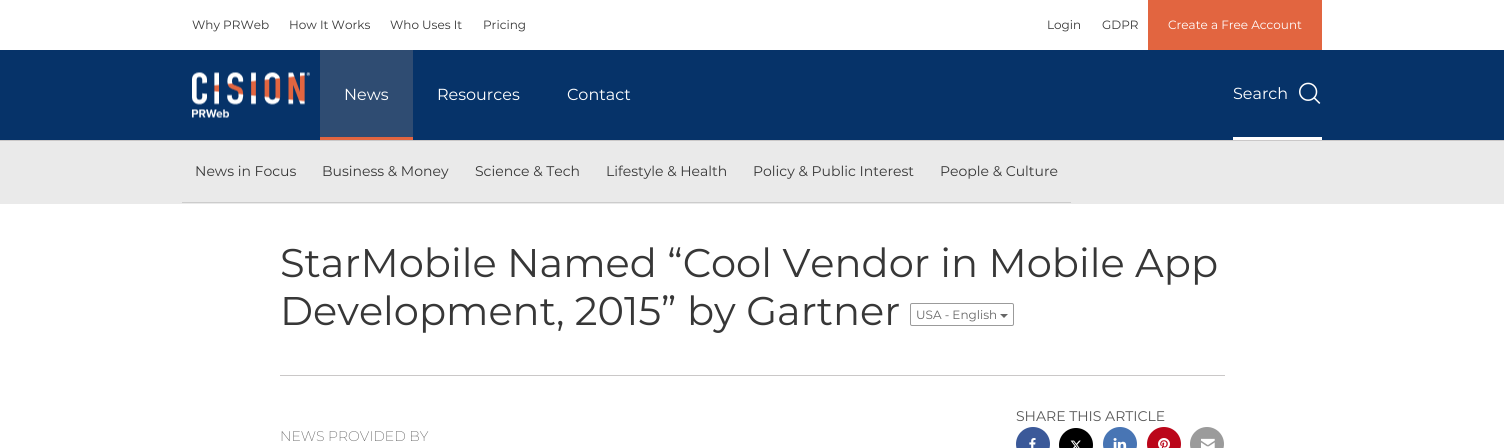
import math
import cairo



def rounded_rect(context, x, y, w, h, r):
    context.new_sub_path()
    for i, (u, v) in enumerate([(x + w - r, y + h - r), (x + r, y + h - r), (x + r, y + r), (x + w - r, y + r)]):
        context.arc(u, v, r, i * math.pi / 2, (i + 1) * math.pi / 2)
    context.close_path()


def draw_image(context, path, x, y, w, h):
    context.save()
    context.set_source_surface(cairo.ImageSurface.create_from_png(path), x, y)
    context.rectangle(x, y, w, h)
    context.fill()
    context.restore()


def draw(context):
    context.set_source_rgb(1, 1, 1)
    context.paint()
    context.set_source_rgb(226 / 255, 101 / 255, 64 / 255)
    context.rectangle(1148, 0, 174, 50)
    context.fill()
    context.set_source_rgb(6 / 255, 51 / 255, 105 / 255)
    context.rectangle(0, 50, 1504, 90)
    context.fill()
    context.set_source_rgb(202 / 255, 200 / 255, 200 / 255)
    context.rectangle(0, 140, 1504, 1)
    context.fill()
    draw_image(context, "images/1.png", 192, 72, 118, 46)
    context.set_source_rgb(47 / 255, 76 / 255, 114 / 255)
    context.rectangle(320, 50, 93, 87)
    context.fill()
    context.set_source_rgb(226 / 255, 101 / 255, 64 / 255)
    context.rectangle(320, 137, 93, 3)
    context.fill()
    context.set_source_rgb(1, 1, 1)
    context.rectangle(1233, 137, 89, 3)
    context.fill()
    draw_image(context, "images/2.png", 1299, 82, 22, 22)
    context.set_source_rgb(234 / 255, 234 / 255, 234 / 255)
    context.rectangle(0, 141, 1504, 63)
    context.fill()
    context.set_source_rgb(204 / 255, 204 / 255, 204 / 255)
    context.rectangle(182, 202, 889, 1)
    context.fill()
    rounded_rect(context, 910.5, 303.5, 103, 22, 1.5)
    context.set_source_rgb(155 / 255, 155 / 255, 155 / 255)
    context.set_line_width(1)
    context.stroke()
    context.set_source_rgb(102 / 255, 102 / 255, 102 / 255)
    context.new_path()
    context.move_to(1000, 314)
    context.line_to(1008, 314)
    context.line_to(1004, 318)
    context.close_path()
    context.fill()
    context.set_source_rgb(202 / 255, 200 / 255, 200 / 255)
    context.rectangle(280, 375, 945, 1)
    context.fill()
    context.set_source_rgb(59 / 255, 89 / 255, 153 / 255)
    context.arc(1033, 444, 17, 0, 2 * math.pi)
    context.fill()
    draw_image(context, "images/3.png", 1029, 438, 7, 10)
    context.set_source_rgb(0, 0, 0)
    context.arc(1076, 445, 17, 0, 2 * math.pi)
    context.fill()
    draw_image(context, "images/4.png", 1070, 440, 11, 8)
    context.set_source_rgb(72 / 255, 117 / 255, 180 / 255)
    context.arc(1120, 444, 17, 0, 2 * math.pi)
    context.fill()
    draw_image(context, "images/5.png", 1113, 438, 14, 10)
    context.set_source_rgb(187 / 255, 6 / 255, 26 / 255)
    context.arc(1164, 444, 17, 0, 2 * math.pi)
    context.fill()
    draw_image(context, "images/6.png", 1158, 438, 12, 10)
    context.set_source_rgb(155 / 255, 155 / 255, 155 / 255)
    context.arc(1207, 444, 17, 0, 2 * math.pi)
    context.fill()
    draw_image(context, "images/7.png", 1201, 438, 14, 10)
    context.select_font_face("Montserrat")
    context.set_font_size(12)
    context.set_source_rgb(55 / 255, 55 / 255, 55 / 255)
    context.move_to(192, 29)
    context.show_text("Why PRWeb")
    context.move_to(289, 29)
    context.show_text("How It Works")
    context.move_to(390, 29)
    context.show_text("Who Uses It")
    context.move_to(483, 29)
    context.show_text("Pricing")
    context.move_to(1047, 29)
    context.show_text("Login")
    context.move_to(1102, 29)
    context.show_text("GDPR")
    context.set_source_rgb(1, 1, 1)
    context.move_to(1168, 29)
    context.show_text("Create a Free Account")
    context.set_font_size(16)
    context.move_to(344, 100)
    context.show_text("News")
    context.move_to(437, 100)
    context.show_text("Resources")
    context.move_to(567, 100)
    context.show_text("Contact")
    context.move_to(1233, 99)
    context.show_text("Search")
    context.set_font_size(14)
    context.set_source_rgb(55 / 255, 55 / 255, 55 / 255)
    context.move_to(195, 176)
    context.show_text("News in Focus")
    context.move_to(322, 176)
    context.show_text("Business & Money")
    context.move_to(475, 176)
    context.show_text("Science & Tech")
    context.move_to(606, 176)
    context.show_text("Lifestyle & Health")
    context.move_to(753, 176)
    context.show_text("Policy & Public Interest")
    context.move_to(940, 176)
    context.show_text("People & Culture")
    context.set_font_size(40)
    context.move_to(280, 277)
    context.show_text("StarMobile Named “Cool Vendor in Mobile App")
    context.move_to(280, 325)
    context.show_text("Development, 2015” by Gartner")
    context.set_font_size(12)
    context.set_source_rgb(102 / 255, 102 / 255, 102 / 255)
    context.move_to(916, 319)
    context.show_text("USA - English")
    context.set_font_size(14)
    context.set_source_rgb(87 / 255, 87 / 255, 87 / 255)
    context.move_to(1016, 421)
    context.show_text("SHARE THIS ARTICLE")
    context.select_font_face("Montserrat ExtraLight")
    context.move_to(280, 441)
    context.show_text("NEWS PROVIDED BY")


surface = cairo.ImageSurface(cairo.Format.RGB24, 1504, 448)
context = cairo.Context(surface)
options = cairo.FontOptions()
options.set_hint_metrics(cairo.HintMetrics.OFF)
options.set_hint_style(cairo.HintStyle.NONE)
context.set_font_options(options)
context.set_miter_limit(4)
draw(context)
surface.write_to_png("out.png")
